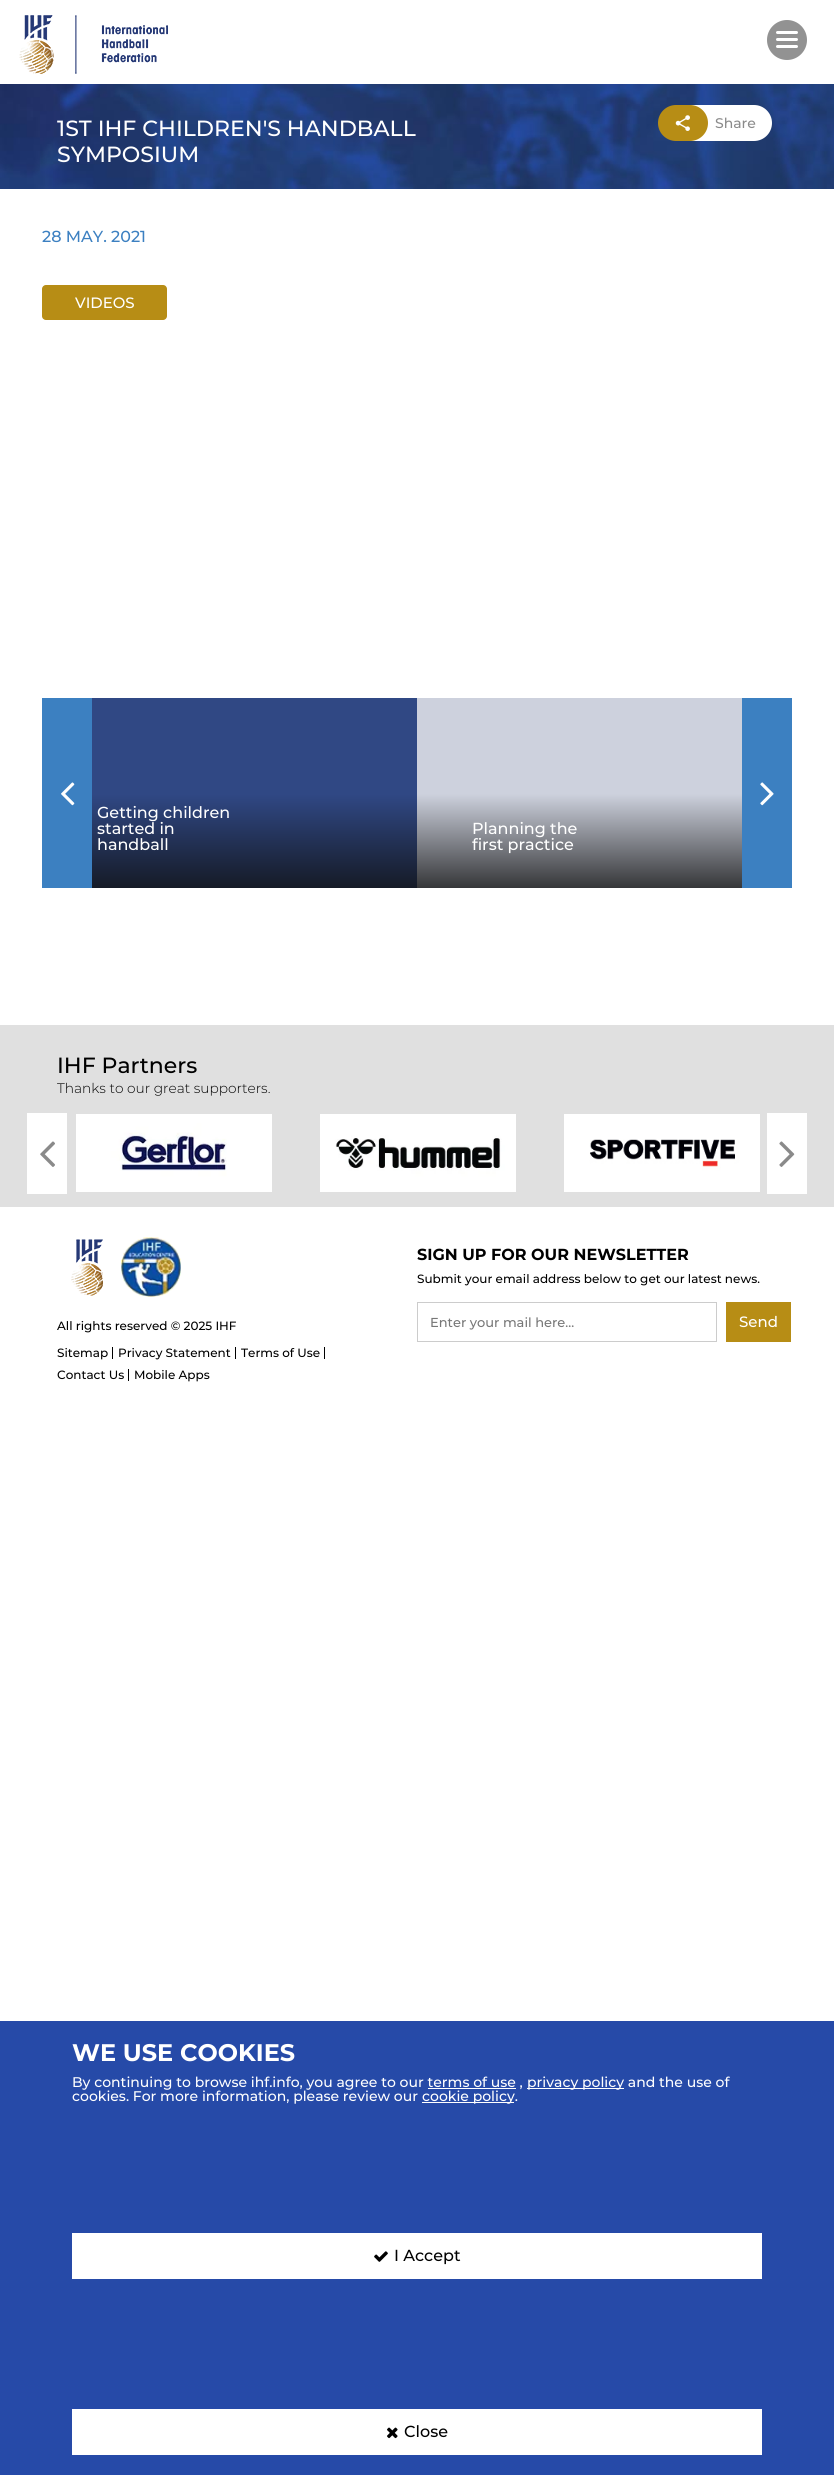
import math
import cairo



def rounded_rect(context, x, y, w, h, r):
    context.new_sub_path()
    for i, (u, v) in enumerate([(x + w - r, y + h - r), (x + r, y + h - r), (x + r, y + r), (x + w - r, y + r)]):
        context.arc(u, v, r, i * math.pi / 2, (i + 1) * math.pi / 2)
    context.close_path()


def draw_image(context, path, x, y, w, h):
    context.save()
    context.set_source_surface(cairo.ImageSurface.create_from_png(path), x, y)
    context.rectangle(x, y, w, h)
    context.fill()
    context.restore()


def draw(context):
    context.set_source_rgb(1, 1, 1)
    context.paint()
    draw_image(context, "images/1.png", 19, 15, 149, 59)
    context.set_source_rgb(146 / 255, 146 / 255, 146 / 255)
    context.arc(787, 40, 20, 0, 2 * math.pi)
    context.fill()
    context.set_source_rgb(1, 1, 1)
    rounded_rect(context, 776, 31, 22, 3, 1.5)
    context.fill()
    rounded_rect(context, 776, 38, 22, 3, 1.5)
    context.fill()
    rounded_rect(context, 776, 45, 22, 3, 1.5)
    context.fill()
    draw_image(context, "images/2.png", 0, 84, 834, 105)
    rounded_rect(context, 666, 105, 106, 36, 18)
    context.fill()
    context.set_source_rgb(183 / 255, 141 / 255, 21 / 255)
    rounded_rect(context, 658, 105, 50, 36, 18)
    context.fill()
    draw_image(context, "images/3.png", 675, 115, 15, 16)
    rounded_rect(context, 42, 285, 125, 35, 4)
    context.fill()
    context.set_source_rgb(60 / 255, 128 / 255, 193 / 255)
    context.rectangle(42, 698, 50, 190)
    context.fill()
    draw_image(context, "images/4.png", 61, 782, 14, 24)
    context.set_source_rgb(48 / 255, 72 / 255, 132 / 255)
    context.rectangle(92, 698, 325, 96)
    context.fill()
    gradient = cairo.LinearGradient(230, 794, 230, 889)
    gradient.add_color_stop_rgba(0, 48 / 255, 72 / 255, 132 / 255, 1)
    gradient.add_color_stop_rgba(1, 21 / 255, 26 / 255, 38 / 255, 1)
    context.set_source(gradient)
    context.rectangle(92, 794, 325, 94)
    context.fill()
    context.set_source_rgb(205 / 255, 209 / 255, 221 / 255)
    context.rectangle(417, 698, 325, 96)
    context.fill()
    gradient = cairo.LinearGradient(605, 794, 605, 889)
    gradient.add_color_stop_rgba(0, 205 / 255, 209 / 255, 221 / 255, 1)
    gradient.add_color_stop_rgba(1, 52 / 255, 53 / 255, 55 / 255, 1)
    context.set_source(gradient)
    context.rectangle(417, 794, 325, 94)
    context.fill()
    context.set_source_rgb(60 / 255, 128 / 255, 193 / 255)
    context.rectangle(742, 698, 50, 190)
    context.fill()
    draw_image(context, "images/5.png", 760, 782, 14, 24)
    context.set_source_rgb(224 / 255, 224 / 255, 224 / 255)
    context.rectangle(0, 1025, 834, 182)
    context.fill()
    context.set_source_rgb(1, 1, 1)
    context.rectangle(27, 1113, 40, 81)
    context.fill()
    draw_image(context, "images/6.png", 40, 1141, 15, 26)
    draw_image(context, "images/7.png", 76, 1114, 196, 78)
    draw_image(context, "images/8.png", 320, 1114, 196, 78)
    draw_image(context, "images/9.png", 564, 1114, 196, 78)
    context.rectangle(767, 1113, 40, 81)
    context.fill()
    draw_image(context, "images/10.png", 779, 1141, 16, 26)
    context.rectangle(417.5, 1302.5, 299, 39)
    context.set_source_rgb(204 / 255, 204 / 255, 204 / 255)
    context.set_line_width(1)
    context.stroke()
    context.set_source_rgb(183 / 255, 141 / 255, 21 / 255)
    context.rectangle(726, 1302, 65, 40)
    context.fill()
    draw_image(context, "images/11.png", 71, 1239, 32, 57)
    draw_image(context, "images/12.png", 121, 1237, 60, 60)
    context.set_source_rgb(0, 0, 0)
    context.rectangle(112, 1347, 1, 12)
    context.fill()
    context.rectangle(235, 1347, 1, 12)
    context.fill()
    context.rectangle(324, 1347, 1, 12)
    context.fill()
    context.rectangle(128, 1369, 1, 12)
    context.fill()
    context.set_source_rgb(38 / 255, 74 / 255, 168 / 255)
    context.rectangle(0, 2021, 834, 454)
    context.fill()
    context.set_source_rgb(1, 1, 1)
    context.rectangle(527, 2088, 97, 1)
    context.fill()
    context.rectangle(428, 2088, 88, 1)
    context.fill()
    context.rectangle(422, 2102, 92, 1)
    context.fill()
    context.rectangle(72, 2233, 690, 46)
    context.fill()
    draw_image(context, "images/13.png", 374, 2251, 14, 11)
    context.rectangle(72, 2409, 690, 46)
    context.fill()
    draw_image(context, "images/14.png", 387, 2427, 11, 12)
    context.select_font_face("Montserrat Medium")
    context.set_font_size(22)
    context.move_to(57, 136)
    context.show_text("1ST IHF CHILDREN'S HANDBALL")
    context.move_to(57, 162)
    context.show_text("SYMPOSIUM")
    context.set_font_size(14)
    context.set_source_rgb(139 / 255, 139 / 255, 139 / 255)
    context.move_to(715, 128)
    context.show_text("Share")
    context.set_font_size(16)
    context.set_source_rgb(60 / 255, 128 / 255, 193 / 255)
    context.move_to(42, 242)
    context.show_text("28 MAY. 2021")
    context.set_font_size(15)
    context.set_source_rgb(1, 1, 1)
    context.move_to(75, 308)
    context.show_text("VIDEOS")
    context.set_font_size(16)
    context.move_to(97, 818)
    context.show_text("Getting children")
    context.move_to(97, 834)
    context.show_text("started in")
    context.move_to(97, 850)
    context.show_text("handball")
    context.move_to(472, 834)
    context.show_text("Planning the")
    context.move_to(472, 850)
    context.show_text("first practice")
    context.set_font_size(22)
    context.set_source_rgb(0, 0, 0)
    context.move_to(57, 1073)
    context.show_text("IHF Partners")
    context.select_font_face("Montserrat Light")
    context.set_font_size(13.75)
    context.move_to(57, 1093)
    context.show_text("Thanks to our great supporters.")
    context.select_font_face("Montserrat", cairo.FontSlant.NORMAL, cairo.FontWeight.BOLD)
    context.set_font_size(16)
    context.move_to(417, 1260)
    context.show_text("SIGN UP FOR OUR NEWSLETTER")
    context.select_font_face("Montserrat Medium")
    context.set_font_size(12)
    context.move_to(417, 1283)
    context.show_text("Submit your email address below to get our latest news.")
    context.set_font_size(13)
    context.set_source_rgb(119 / 255, 119 / 255, 119 / 255)
    context.move_to(430, 1327)
    context.show_text("Enter your mail here...")
    context.set_font_size(15)
    context.set_source_rgb(1, 1, 1)
    context.move_to(739, 1327)
    context.show_text("Send")
    context.set_font_size(12)
    context.set_source_rgb(0, 0, 0)
    context.move_to(57, 1330)
    context.show_text("All rights reserved © 2025 IHF")
    context.move_to(57, 1357)
    context.show_text("Sitemap")
    context.move_to(118, 1357)
    context.show_text("Privacy Statement")
    context.move_to(241, 1357)
    context.show_text("Terms of Use")
    context.move_to(57, 1379)
    context.show_text("Contact Us")
    context.move_to(134, 1379)
    context.show_text("Mobile Apps")
    context.select_font_face("Montserrat", cairo.FontSlant.NORMAL, cairo.FontWeight.BOLD)
    context.set_font_size(24)
    context.set_source_rgb(1, 1, 1)
    context.move_to(72, 2061)
    context.show_text("WE USE COOKIES")
    context.select_font_face("Montserrat Medium")
    context.set_font_size(14)
    context.move_to(72, 2087)
    context.show_text("By continuing to browse ihf.info, you agree to our terms of use ,")
    context.move_to(527, 2087)
    context.show_text("privacy policy and the use of")
    context.move_to(72, 2101)
    context.show_text("cookies. For more information, please review our")
    context.move_to(422, 2101)
    context.show_text("cookie policy.")
    context.set_font_size(16)
    context.set_source_rgb(0, 0, 0)
    context.move_to(394, 2261)
    context.show_text("I Accept")
    context.move_to(404, 2437)
    context.show_text("Close")


surface = cairo.ImageSurface(cairo.Format.RGB24, 834, 2475)
context = cairo.Context(surface)
options = cairo.FontOptions()
options.set_hint_metrics(cairo.HintMetrics.OFF)
options.set_hint_style(cairo.HintStyle.NONE)
context.set_font_options(options)
context.set_miter_limit(4)
draw(context)
surface.write_to_png("out.png")
